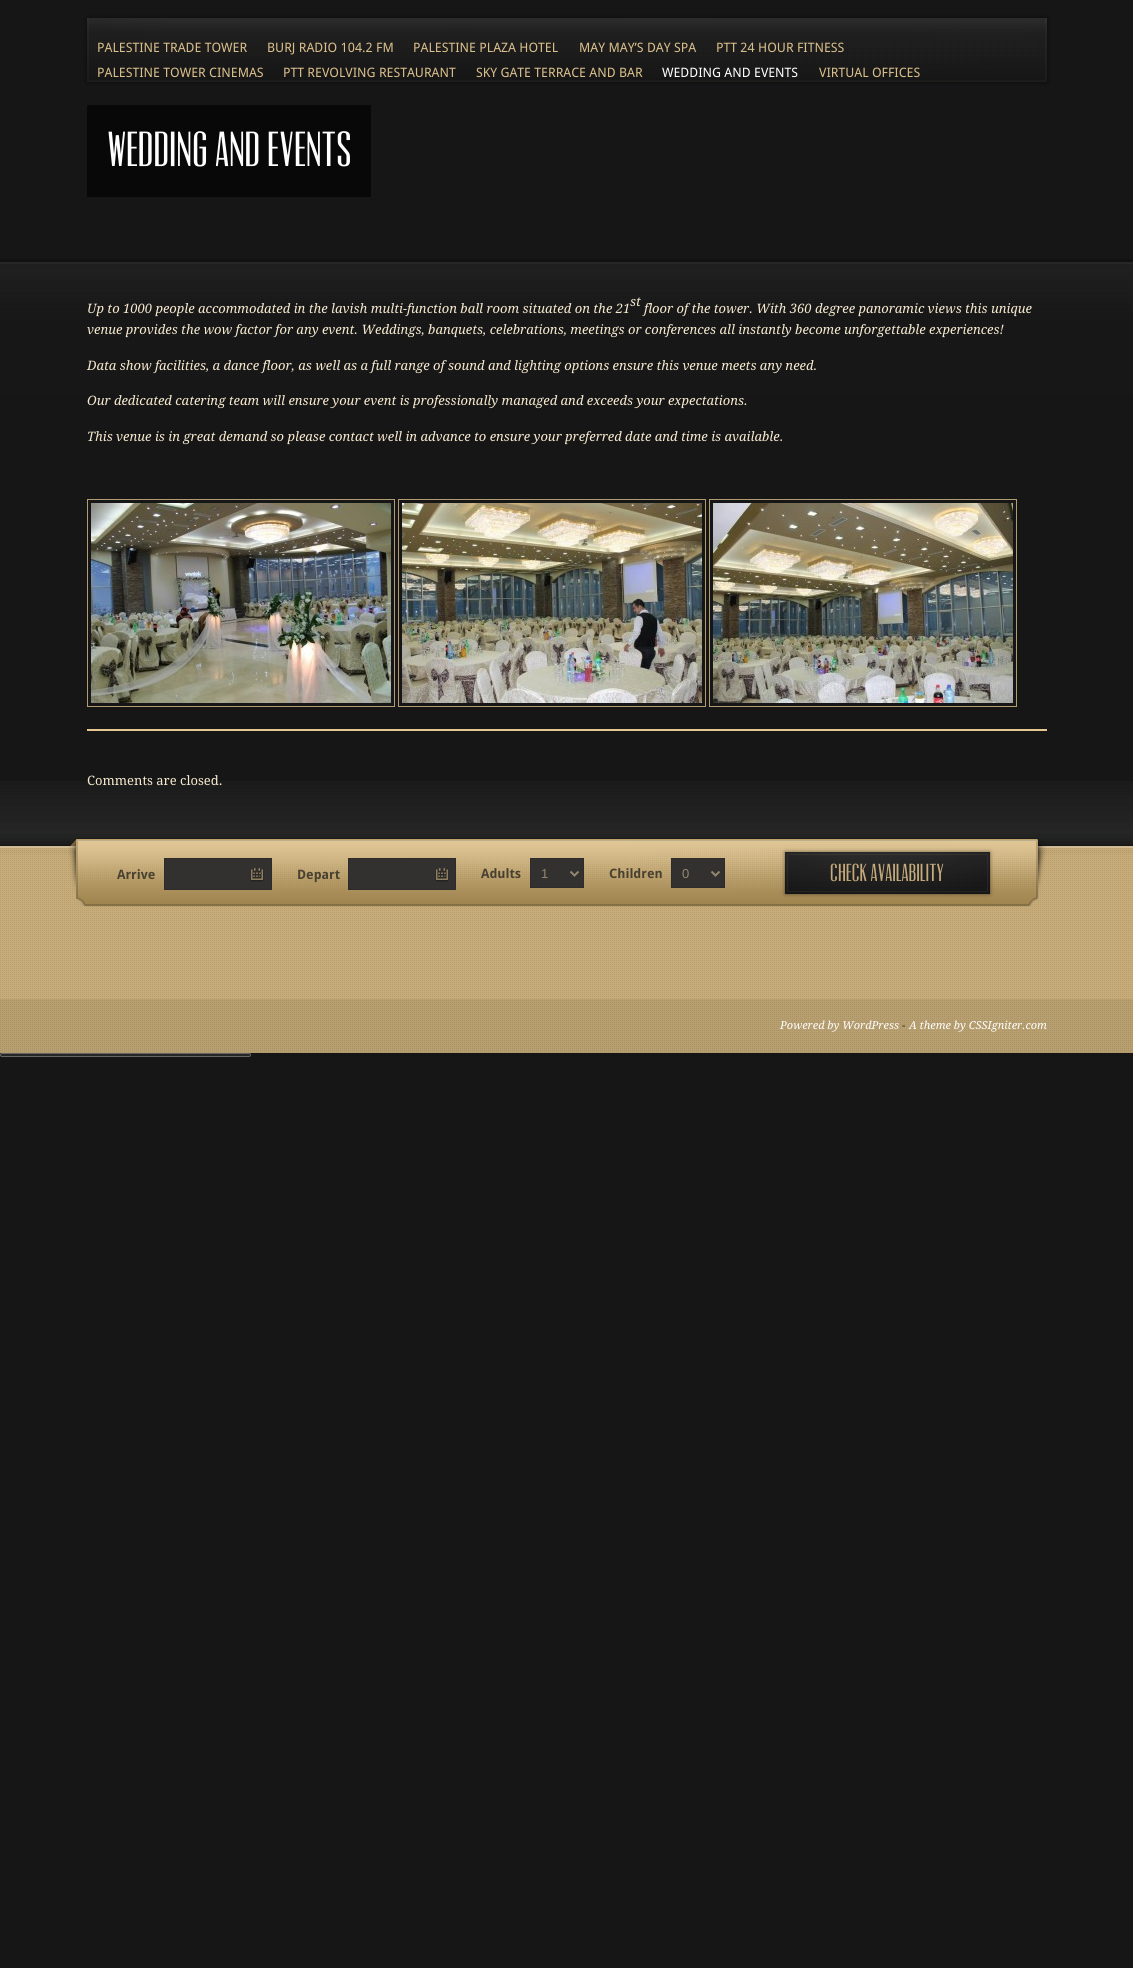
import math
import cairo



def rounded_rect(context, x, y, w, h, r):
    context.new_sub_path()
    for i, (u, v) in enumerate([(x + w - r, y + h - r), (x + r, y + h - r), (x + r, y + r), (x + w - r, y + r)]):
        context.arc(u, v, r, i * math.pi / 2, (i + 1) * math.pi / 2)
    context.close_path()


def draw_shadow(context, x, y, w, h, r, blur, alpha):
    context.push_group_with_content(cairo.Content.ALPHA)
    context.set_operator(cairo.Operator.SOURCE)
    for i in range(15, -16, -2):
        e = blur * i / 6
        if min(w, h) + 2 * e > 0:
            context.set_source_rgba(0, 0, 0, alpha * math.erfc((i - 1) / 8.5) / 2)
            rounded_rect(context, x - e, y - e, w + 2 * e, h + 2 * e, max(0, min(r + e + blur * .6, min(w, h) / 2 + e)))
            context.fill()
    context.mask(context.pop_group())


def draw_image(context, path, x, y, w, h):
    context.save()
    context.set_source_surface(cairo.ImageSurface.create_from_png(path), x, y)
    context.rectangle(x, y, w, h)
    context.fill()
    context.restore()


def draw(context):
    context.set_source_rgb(22 / 255, 22 / 255, 22 / 255)
    context.paint()
    context.set_source_rgb(0, 0, 0)
    draw_shadow(context, 87, 18, 960, 64, 0, 2.5, 0.5)
    draw_image(context, "images/1.png", 87, 18, 960, 64)
    context.set_source_rgb(8 / 255, 8 / 255, 8 / 255)
    context.rectangle(87, 105, 284, 92)
    context.fill()
    draw_image(context, "images/2.png", 0, 259, 1133, 135)
    draw_image(context, "images/3.png", 0, 781, 1133, 64)
    context.rectangle(87.5, 499.5, 307, 207)
    context.set_source_rgb(179 / 255, 156 / 255, 113 / 255)
    context.set_line_width(1)
    context.stroke()
    draw_image(context, "images/4.png", 91, 503, 300, 200)
    context.rectangle(398.5, 499.5, 307, 207)
    context.stroke()
    draw_image(context, "images/5.png", 402, 503, 300, 200)
    context.rectangle(709.5, 499.5, 307, 207)
    context.stroke()
    draw_image(context, "images/6.png", 713, 503, 300, 200)
    context.set_source_rgb(228 / 255, 199 / 255, 145 / 255)
    context.rectangle(87, 729, 960, 2)
    context.fill()
    draw_image(context, "images/7.png", 0, 846, 1133, 207)
    draw_image(context, "images/8.png", 68, 838, 979, 69)
    context.set_source_rgb(51 / 255, 49 / 255, 48 / 255)
    context.rectangle(165, 859, 106, 30)
    context.fill()
    draw_image(context, "images/9.png", 250, 868, 14, 14)
    context.rectangle(164.5, 858.5, 107, 31)
    context.set_source_rgb(45 / 255, 44 / 255, 43 / 255)
    context.stroke()
    context.set_source_rgb(51 / 255, 49 / 255, 48 / 255)
    context.rectangle(349, 859, 106, 30)
    context.fill()
    draw_image(context, "images/9.png", 435, 868, 14, 14)
    context.rectangle(348.5, 858.5, 107, 31)
    context.set_source_rgb(45 / 255, 44 / 255, 43 / 255)
    context.stroke()
    context.set_source_rgb(51 / 255, 49 / 255, 48 / 255)
    context.rectangle(530.5, 858.5, 53, 29)
    context.fill_preserve()
    context.set_source_rgb(45 / 255, 44 / 255, 43 / 255)
    context.stroke()
    context.new_path()
    context.move_to(570.5, 871.5)
    context.line_to(574.5, 875.5)
    context.line_to(578.5, 871.5)
    context.set_source_rgb(147 / 255, 135 / 255, 110 / 255)
    context.set_line_width(2)
    context.stroke()
    context.set_source_rgb(51 / 255, 49 / 255, 48 / 255)
    context.rectangle(671.5, 858.5, 53, 29)
    context.fill_preserve()
    context.set_source_rgb(45 / 255, 44 / 255, 43 / 255)
    context.set_line_width(1)
    context.stroke()
    context.new_path()
    context.move_to(711.5, 871.5)
    context.line_to(715.5, 875.5)
    context.line_to(719.5, 871.5)
    context.set_source_rgb(147 / 255, 135 / 255, 110 / 255)
    context.set_line_width(2)
    context.stroke()
    context.set_source_rgb(0, 0, 0)
    draw_shadow(context, 785, 852, 205, 42, 0, 2, 0.5)
    draw_image(context, "images/10.png", 785, 852, 205, 42)
    context.set_source_rgba(0, 0, 0, 0.08)
    context.rectangle(0, 999, 1133, 54)
    context.fill()
    context.set_source_rgb(38 / 255, 38 / 255, 38 / 255)
    context.rectangle(0, 1053, 251, 3)
    context.fill()
    rounded_rect(context, 0.5, 1053.5, 250, 3, 1.5)
    context.set_source_rgb(102 / 255, 102 / 255, 102 / 255)
    context.set_line_width(1)
    context.stroke()
    context.select_font_face("Droid Sans")
    context.set_font_size(13)
    context.set_source_rgb(218 / 255, 191 / 255, 140 / 255)
    context.move_to(97, 52)
    context.show_text("PALESTINE TRADE TOWER")
    context.move_to(267, 52)
    context.show_text("BURJ RADIO 104.2 FM")
    context.move_to(413, 52)
    context.show_text("PALESTINE PLAZA HOTEL")
    context.move_to(579, 52)
    context.show_text("MAY MAY’S DAY SPA")
    context.move_to(716, 52)
    context.show_text("PTT 24 HOUR FITNESS")
    context.move_to(97, 77)
    context.show_text("PALESTINE TOWER CINEMAS")
    context.move_to(283, 77)
    context.show_text("PTT REVOLVING RESTAURANT")
    context.move_to(476, 77)
    context.show_text("SKY GATE TERRACE AND BAR")
    context.set_source_rgb(1, 1, 1)
    context.move_to(662, 77)
    context.show_text("WEDDING AND EVENTS")
    context.set_source_rgb(218 / 255, 191 / 255, 140 / 255)
    context.move_to(819, 77)
    context.show_text("VIRTUAL OFFICES")
    context.select_font_face("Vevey")
    context.set_font_size(46)
    context.set_source_rgb(1, 1, 1)
    context.move_to(107, 166)
    context.show_text("Wedding and Events")
    context.select_font_face("Droid Serif", cairo.FontSlant.ITALIC)
    context.set_font_size(13)
    context.set_source_rgb(247 / 255, 234 / 255, 208 / 255)
    context.move_to(630, 306)
    context.show_text("st")
    context.move_to(87, 313)
    context.show_text("Up to 1000 people accommodated in the lavish multi-function ball room situated on the 21")
    context.move_to(644, 313)
    context.show_text("floor of the tower. With 360 degree panoramic views this unique")
    context.move_to(87, 334)
    context.show_text("venue provides the wow factor for any event. Weddings, banquets, celebrations, meetings or conferences all instantly become unforgettable experiences!")
    context.move_to(87, 370)
    context.show_text("Data show facilities, a dance floor, as well as a full range of sound and lighting options ensure this venue meets any need.")
    context.move_to(87, 405)
    context.show_text("Our dedicated catering team will ensure your event is professionally managed and exceeds your expectations.")
    context.move_to(87, 441)
    context.show_text("This venue is in great demand so please contact well in advance to ensure your preferred date and time is available.")
    context.select_font_face("Droid Serif")
    context.move_to(87, 785)
    context.show_text("Comments are closed.")
    context.select_font_face("Droid Sans", cairo.FontSlant.NORMAL, cairo.FontWeight.BOLD)
    context.set_source_rgb(73 / 255, 65 / 255, 48 / 255)
    context.move_to(117, 879)
    context.show_text("Arrive")
    context.move_to(297, 879)
    context.show_text("Depart")
    context.move_to(481, 878)
    context.show_text("Adults")
    context.select_font_face("Liberation Sans")
    context.set_source_rgb(147 / 255, 135 / 255, 110 / 255)
    context.move_to(541, 878)
    context.show_text("1")
    context.select_font_face("Droid Sans", cairo.FontSlant.NORMAL, cairo.FontWeight.BOLD)
    context.set_source_rgb(73 / 255, 65 / 255, 48 / 255)
    context.move_to(609, 878)
    context.show_text("Children")
    context.select_font_face("Liberation Sans")
    context.set_source_rgb(147 / 255, 135 / 255, 110 / 255)
    context.move_to(682, 878)
    context.show_text("0")
    context.select_font_face("Vevey")
    context.set_font_size(23)
    context.set_source_rgb(197 / 255, 171 / 255, 123 / 255)
    context.move_to(830, 881)
    context.show_text("Check Availability")
    context.select_font_face("Droid Serif", cairo.FontSlant.ITALIC)
    context.set_font_size(11)
    context.set_source_rgb(1, 1, 1)
    context.move_to(780, 1029)
    context.show_text("Powered by WordPress")
    context.set_source_rgb(38 / 255, 38 / 255, 38 / 255)
    context.move_to(902, 1029)
    context.show_text("-")
    context.set_source_rgb(1, 1, 1)
    context.move_to(909, 1029)
    context.show_text("A theme by CSSIgniter.com")


surface = cairo.ImageSurface(cairo.Format.RGB24, 1133, 1968)
context = cairo.Context(surface)
options = cairo.FontOptions()
options.set_hint_metrics(cairo.HintMetrics.OFF)
options.set_hint_style(cairo.HintStyle.NONE)
context.set_font_options(options)
context.set_miter_limit(4)
draw(context)
surface.write_to_png("out.png")
